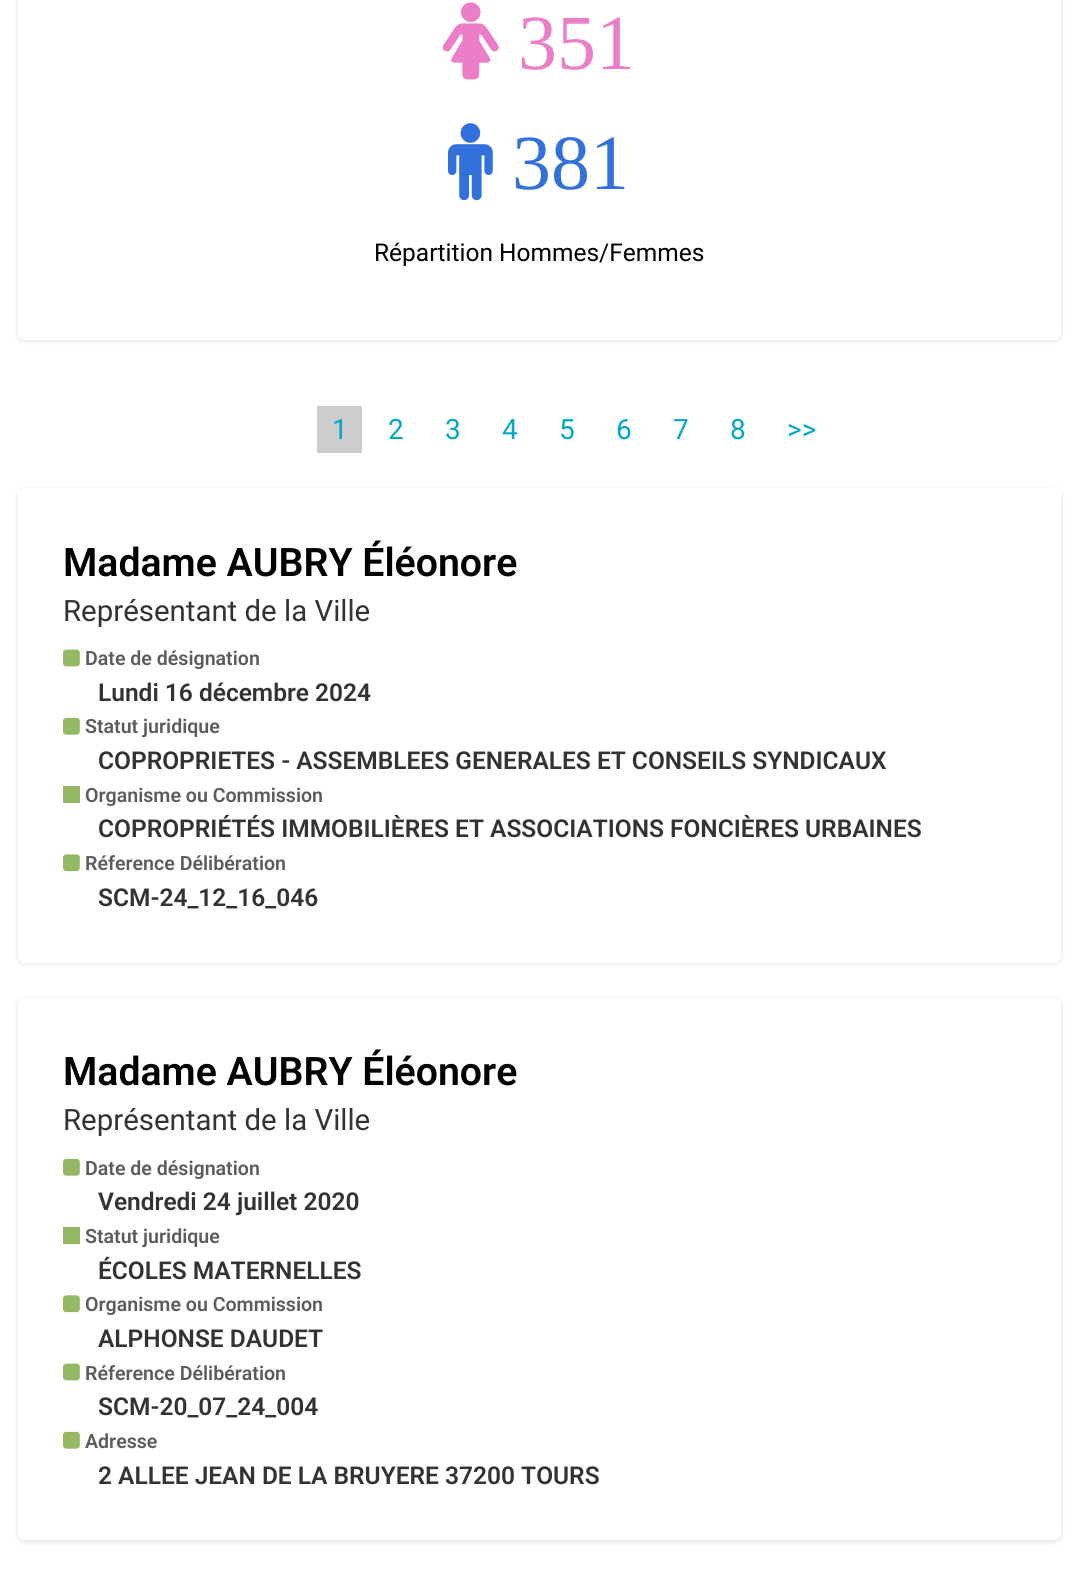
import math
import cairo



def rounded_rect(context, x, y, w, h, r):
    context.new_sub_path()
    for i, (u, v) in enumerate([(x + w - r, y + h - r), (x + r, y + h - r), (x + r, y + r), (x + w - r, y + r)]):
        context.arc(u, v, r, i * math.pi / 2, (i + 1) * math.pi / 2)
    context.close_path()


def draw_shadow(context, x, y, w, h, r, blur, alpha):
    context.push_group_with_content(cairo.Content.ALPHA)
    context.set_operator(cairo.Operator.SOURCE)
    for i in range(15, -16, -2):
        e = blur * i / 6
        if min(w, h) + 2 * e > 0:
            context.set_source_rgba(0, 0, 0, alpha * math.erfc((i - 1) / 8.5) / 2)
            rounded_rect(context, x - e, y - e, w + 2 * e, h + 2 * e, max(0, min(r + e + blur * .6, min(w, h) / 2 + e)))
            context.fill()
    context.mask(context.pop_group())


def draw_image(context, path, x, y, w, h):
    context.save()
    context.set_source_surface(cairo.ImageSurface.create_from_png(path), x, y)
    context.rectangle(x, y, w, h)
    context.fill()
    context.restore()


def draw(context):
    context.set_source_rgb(1, 1, 1)
    context.paint()
    context.set_source_rgb(0, 0, 0)
    draw_shadow(context, 18, -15, 1043, 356, 7, 2.5, 0.13)
    context.set_source_rgb(1, 1, 1)
    rounded_rect(context, 18, -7, 1043, 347, 7)
    context.fill()
    draw_image(context, "images/1.png", 442, 2, 57, 78)
    draw_image(context, "images/2.png", 448, 123, 45, 78)
    context.set_source_rgb(204 / 255, 204 / 255, 204 / 255)
    context.rectangle(317, 406, 45, 47)
    context.fill()
    context.set_source_rgb(0, 0, 0)
    draw_shadow(context, 18, 490, 1043, 474, 7, 2.5, 0.13)
    context.set_source_rgb(1, 1, 1)
    rounded_rect(context, 18, 488, 1043, 475, 7)
    context.fill()
    draw_image(context, "images/3.png", 63, 649, 17, 18)
    draw_image(context, "images/4.png", 63, 717, 17, 18)
    context.set_source_rgb(149 / 255, 184 / 255, 101 / 255)
    context.rectangle(63, 786, 17, 17)
    context.fill()
    draw_image(context, "images/5.png", 63, 854, 17, 18)
    context.set_source_rgb(0, 0, 0)
    draw_shadow(context, 18, 999, 1043, 543, 7, 2.5, 0.13)
    context.set_source_rgb(1, 1, 1)
    rounded_rect(context, 18, 998, 1043, 542, 7)
    context.fill()
    draw_image(context, "images/4.png", 63, 1158, 17, 18)
    context.set_source_rgb(149 / 255, 184 / 255, 101 / 255)
    context.rectangle(63, 1227, 17, 17)
    context.fill()
    draw_image(context, "images/5.png", 63, 1295, 17, 18)
    draw_image(context, "images/3.png", 63, 1363, 17, 18)
    draw_image(context, "images/4.png", 63, 1431, 17, 18)
    context.select_font_face("Liberation Serif")
    context.set_font_size(78)
    context.set_source_rgb(235 / 255, 126 / 255, 198 / 255)
    context.move_to(518, 69)
    context.show_text("351")
    context.set_source_rgb(50 / 255, 112 / 255, 219 / 255)
    context.move_to(512, 189)
    context.show_text("381")
    context.select_font_face("Roboto")
    context.set_font_size(24.5)
    context.set_source_rgb(0, 0, 0)
    context.move_to(374, 261)
    context.show_text("Répartition Hommes/Femmes")
    context.set_font_size(28)
    context.set_source_rgb(0, 168 / 255, 199 / 255)
    context.move_to(332, 439)
    context.show_text("1")
    context.move_to(388, 439)
    context.show_text("2")
    context.move_to(445, 439)
    context.show_text("3")
    context.move_to(502, 439)
    context.show_text("4")
    context.move_to(559, 439)
    context.show_text("5")
    context.move_to(616, 439)
    context.show_text("6")
    context.move_to(673, 439)
    context.show_text("7")
    context.move_to(730, 439)
    context.show_text("8")
    context.move_to(787, 439)
    context.show_text(">>")
    context.select_font_face("Roboto SemiBold")
    context.set_font_size(39.25)
    context.set_source_rgb(0, 0, 0)
    context.move_to(63, 576)
    context.show_text("Madame AUBRY Éléonore")
    context.select_font_face("Roboto")
    context.set_font_size(29.4)
    context.set_source_rgb(51 / 255, 51 / 255, 51 / 255)
    context.move_to(63, 621)
    context.show_text("Représentant de la Ville")
    context.select_font_face("Roboto SemiBold")
    context.set_font_size(19.6)
    context.set_source_rgb(92 / 255, 92 / 255, 92 / 255)
    context.move_to(85, 665)
    context.show_text("Date de désignation")
    context.set_font_size(24.5)
    context.set_source_rgb(51 / 255, 51 / 255, 51 / 255)
    context.move_to(98, 701)
    context.show_text("Lundi 16 décembre 2024")
    context.set_font_size(19.6)
    context.set_source_rgb(92 / 255, 92 / 255, 92 / 255)
    context.move_to(85, 733)
    context.show_text("Statut juridique")
    context.set_font_size(24.5)
    context.set_source_rgb(51 / 255, 51 / 255, 51 / 255)
    context.move_to(98, 769)
    context.show_text("COPROPRIETES - ASSEMBLEES GENERALES ET CONSEILS SYNDICAUX")
    context.set_font_size(19.6)
    context.set_source_rgb(92 / 255, 92 / 255, 92 / 255)
    context.move_to(85, 802)
    context.show_text("Organisme ou Commission")
    context.set_font_size(24.5)
    context.set_source_rgb(51 / 255, 51 / 255, 51 / 255)
    context.move_to(98, 837)
    context.show_text("COPROPRIÉTÉS IMMOBILIÈRES ET ASSOCIATIONS FONCIÈRES URBAINES")
    context.set_font_size(19.6)
    context.set_source_rgb(92 / 255, 92 / 255, 92 / 255)
    context.move_to(85, 870)
    context.show_text("Réference Délibération")
    context.set_font_size(24.5)
    context.set_source_rgb(51 / 255, 51 / 255, 51 / 255)
    context.move_to(98, 906)
    context.show_text("SCM-24_12_16_046")
    context.set_font_size(39.25)
    context.set_source_rgb(0, 0, 0)
    context.move_to(63, 1085)
    context.show_text("Madame AUBRY Éléonore")
    context.select_font_face("Roboto")
    context.set_font_size(29.4)
    context.set_source_rgb(51 / 255, 51 / 255, 51 / 255)
    context.move_to(63, 1130)
    context.show_text("Représentant de la Ville")
    context.select_font_face("Roboto SemiBold")
    context.set_font_size(19.6)
    context.set_source_rgb(92 / 255, 92 / 255, 92 / 255)
    context.move_to(85, 1175)
    context.show_text("Date de désignation")
    context.set_font_size(24.5)
    context.set_source_rgb(51 / 255, 51 / 255, 51 / 255)
    context.move_to(98, 1210)
    context.show_text("Vendredi 24 juillet 2020")
    context.set_font_size(19.6)
    context.set_source_rgb(92 / 255, 92 / 255, 92 / 255)
    context.move_to(85, 1243)
    context.show_text("Statut juridique")
    context.set_font_size(24.5)
    context.set_source_rgb(51 / 255, 51 / 255, 51 / 255)
    context.move_to(98, 1279)
    context.show_text("ÉCOLES MATERNELLES")
    context.set_font_size(19.6)
    context.set_source_rgb(92 / 255, 92 / 255, 92 / 255)
    context.move_to(85, 1311)
    context.show_text("Organisme ou Commission")
    context.set_font_size(24.5)
    context.set_source_rgb(51 / 255, 51 / 255, 51 / 255)
    context.move_to(98, 1347)
    context.show_text("ALPHONSE DAUDET")
    context.set_font_size(19.6)
    context.set_source_rgb(92 / 255, 92 / 255, 92 / 255)
    context.move_to(85, 1380)
    context.show_text("Réference Délibération")
    context.set_font_size(24.5)
    context.set_source_rgb(51 / 255, 51 / 255, 51 / 255)
    context.move_to(98, 1415)
    context.show_text("SCM-20_07_24_004")
    context.set_font_size(19.6)
    context.set_source_rgb(92 / 255, 92 / 255, 92 / 255)
    context.move_to(85, 1448)
    context.show_text("Adresse")
    context.set_font_size(24.5)
    context.set_source_rgb(51 / 255, 51 / 255, 51 / 255)
    context.move_to(98, 1484)
    context.show_text("2 ALLEE JEAN DE LA BRUYERE 37200 TOURS")


surface = cairo.ImageSurface(cairo.Format.RGB24, 1078, 1570)
context = cairo.Context(surface)
options = cairo.FontOptions()
options.set_hint_metrics(cairo.HintMetrics.OFF)
options.set_hint_style(cairo.HintStyle.NONE)
context.set_font_options(options)
context.set_miter_limit(4)
draw(context)
surface.write_to_png("out.png")
